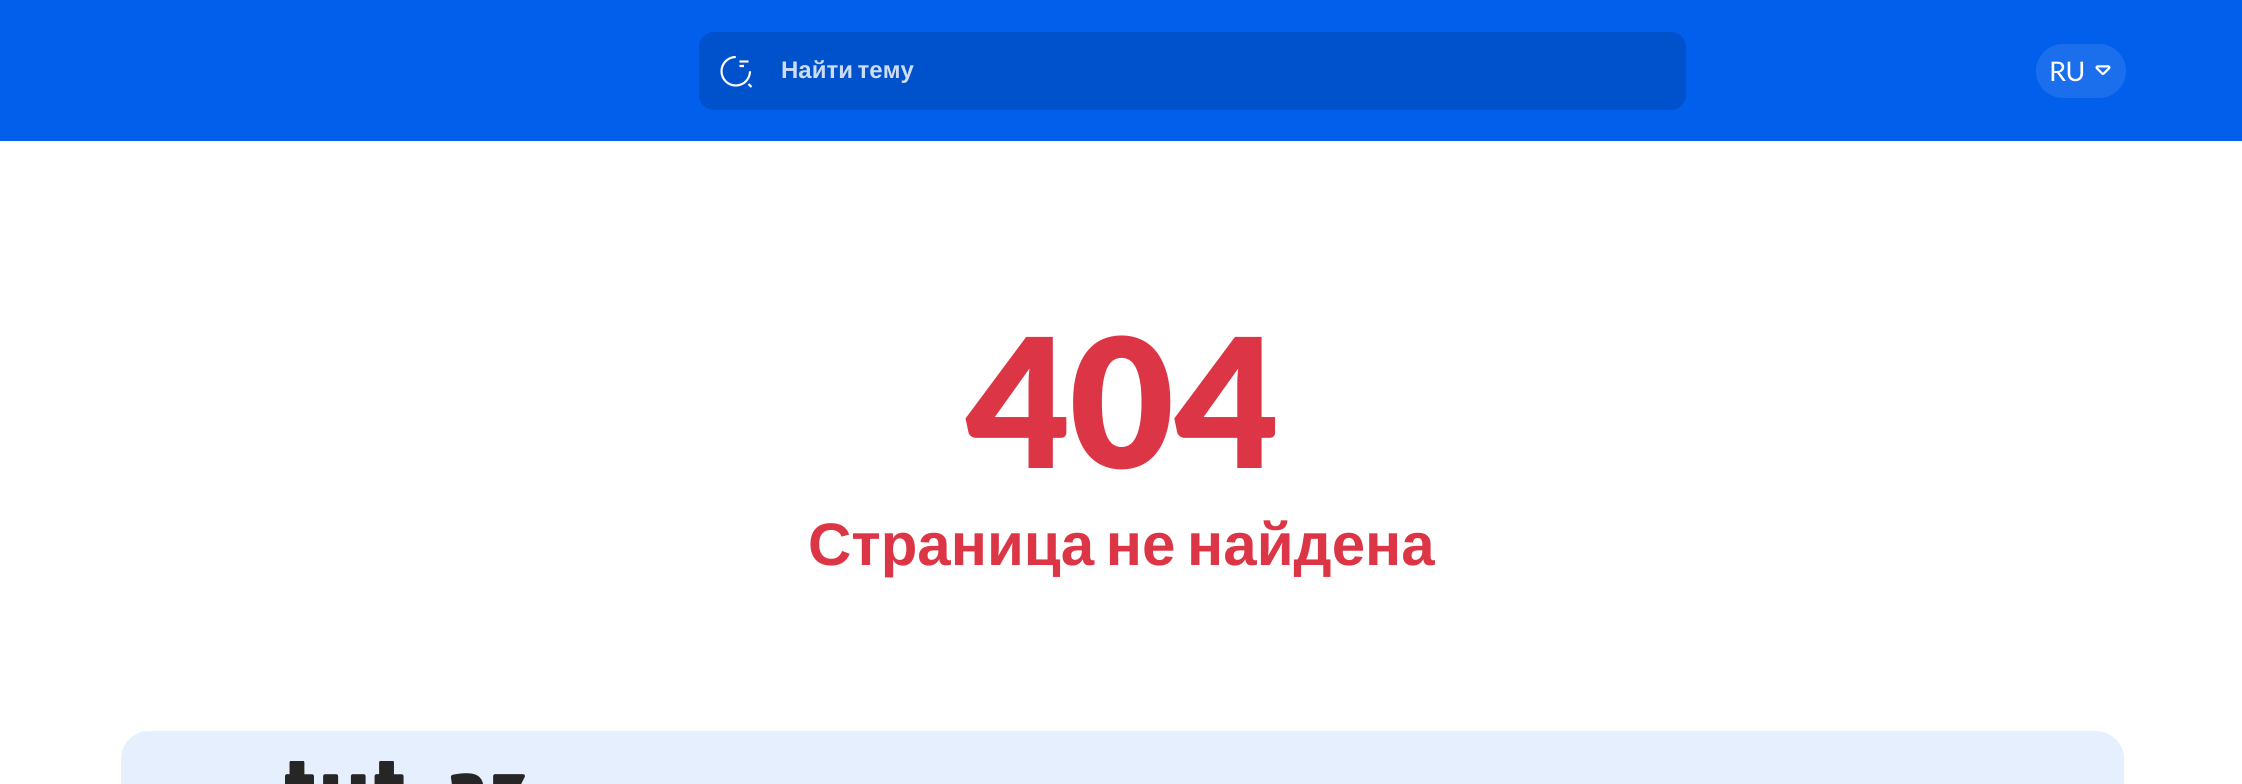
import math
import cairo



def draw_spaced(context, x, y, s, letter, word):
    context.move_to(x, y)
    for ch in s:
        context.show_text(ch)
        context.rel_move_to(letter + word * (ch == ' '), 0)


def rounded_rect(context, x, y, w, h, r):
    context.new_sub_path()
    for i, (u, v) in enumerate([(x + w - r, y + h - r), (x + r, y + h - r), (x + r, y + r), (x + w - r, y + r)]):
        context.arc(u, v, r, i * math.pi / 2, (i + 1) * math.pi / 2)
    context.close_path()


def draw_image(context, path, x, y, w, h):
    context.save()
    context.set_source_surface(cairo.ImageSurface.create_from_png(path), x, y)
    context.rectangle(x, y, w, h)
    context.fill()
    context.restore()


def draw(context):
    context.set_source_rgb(1, 1, 1)
    context.paint()
    context.set_source_rgb(2 / 255, 95 / 255, 235 / 255)
    context.rectangle(0, 0, 2242, 141)
    context.fill()
    context.set_source_rgb(0, 81 / 255, 204 / 255)
    rounded_rect(context, 699, 32, 987, 78, 15)
    context.fill()
    draw_image(context, "images/1.png", 720, 55, 33, 33)
    context.set_source_rgb(27 / 255, 111 / 255, 237 / 255)
    rounded_rect(context, 2036, 44, 90, 54, 27)
    context.fill()
    draw_image(context, "images/2.png", 2095, 65, 16, 10)
    context.set_source_rgb(230 / 255, 239 / 255, 253 / 255)
    rounded_rect(context, 120, 730, 2005, 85, 29)
    context.fill_preserve()
    context.set_source_rgb(1, 1, 1)
    context.stroke()
    draw_image(context, "images/3.png", 285, 761, 240, 23)
    context.select_font_face("Liberation Sans", cairo.FontSlant.NORMAL, cairo.FontWeight.BOLD)
    context.set_font_size(24)
    context.set_source_rgb(204 / 255, 220 / 255, 245 / 255)
    draw_spaced(context, 781, 78, "Найти тему", 0, -2)
    context.select_font_face("Lato")
    context.set_font_size(27)
    context.set_source_rgb(1, 1, 1)
    draw_spaced(context, 2049, 81, "RU", -1, 0)
    context.select_font_face("Lato Black")
    context.set_font_size(180)
    context.set_source_rgb(220 / 255, 53 / 255, 69 / 255)
    context.move_to(965, 468)
    context.show_text("404")
    context.select_font_face("Liberation Sans", cairo.FontSlant.NORMAL, cairo.FontWeight.BOLD)
    context.set_font_size(60)
    draw_spaced(context, 808, 565, "Страница не найдена", 0, -5)


surface = cairo.ImageSurface(cairo.Format.RGB24, 2242, 784)
context = cairo.Context(surface)
options = cairo.FontOptions()
options.set_hint_metrics(cairo.HintMetrics.OFF)
options.set_hint_style(cairo.HintStyle.NONE)
context.set_font_options(options)
context.set_miter_limit(4)
draw(context)
surface.write_to_png("out.png")
